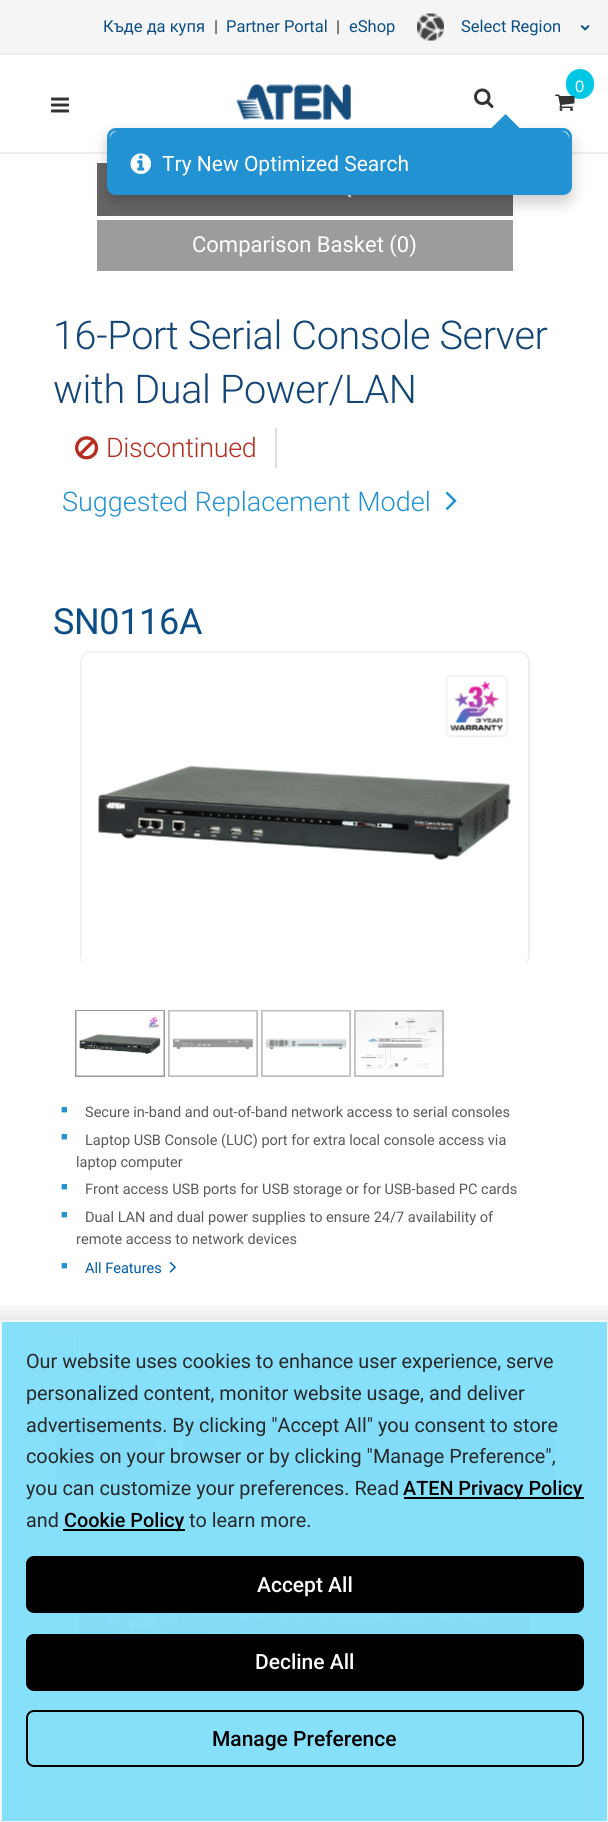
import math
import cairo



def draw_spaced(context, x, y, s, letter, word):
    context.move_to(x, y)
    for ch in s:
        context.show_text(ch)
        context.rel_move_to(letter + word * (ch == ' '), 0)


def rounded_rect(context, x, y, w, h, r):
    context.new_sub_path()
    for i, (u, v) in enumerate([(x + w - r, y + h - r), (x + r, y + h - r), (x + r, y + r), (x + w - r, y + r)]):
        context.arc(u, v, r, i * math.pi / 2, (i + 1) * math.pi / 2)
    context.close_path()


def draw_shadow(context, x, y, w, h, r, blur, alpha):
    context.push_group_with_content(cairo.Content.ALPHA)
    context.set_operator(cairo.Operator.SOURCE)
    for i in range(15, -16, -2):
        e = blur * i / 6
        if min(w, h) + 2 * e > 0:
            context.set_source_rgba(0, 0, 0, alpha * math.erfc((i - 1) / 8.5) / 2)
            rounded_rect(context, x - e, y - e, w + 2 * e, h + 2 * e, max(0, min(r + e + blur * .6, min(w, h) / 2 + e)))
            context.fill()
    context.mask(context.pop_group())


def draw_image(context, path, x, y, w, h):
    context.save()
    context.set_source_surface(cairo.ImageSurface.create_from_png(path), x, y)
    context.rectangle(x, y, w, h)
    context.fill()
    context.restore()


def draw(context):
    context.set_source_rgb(1, 1, 1)
    context.paint()
    context.set_source_rgb(135 / 255, 224 / 255, 249 / 255)
    context.rectangle(2, 1322, 605, 499)
    context.fill()
    context.set_source_rgb(245 / 255, 245 / 255, 245 / 255)
    context.rectangle(0, 0, 608, 53)
    context.fill()
    context.set_source_rgb(238 / 255, 238 / 255, 238 / 255)
    context.rectangle(0, 53, 608, 2)
    context.fill()
    draw_image(context, "images/1.png", 417, 13, 27, 28)
    draw_image(context, "images/2.png", 580, 25, 10, 6)
    context.rectangle(0, 152, 608, 2)
    context.fill()
    context.set_source_rgb(0, 199 / 255, 228 / 255)
    rounded_rect(context, 566, 69, 28, 30, 14)
    context.fill()
    draw_image(context, "images/3.png", 555, 94, 20, 17)
    draw_image(context, "images/4.png", 474, 88, 20, 20)
    draw_image(context, "images/7.png", 236, 84, 115, 36)
    context.set_source_rgb(102 / 255, 102 / 255, 102 / 255)
    context.rectangle(97, 163, 416, 53)
    context.fill()
    draw_image(context, "images/8.png", 347, 195, 5, 3)
    context.set_source_rgb(156 / 255, 156 / 255, 156 / 255)
    context.rectangle(97, 220, 416, 51)
    context.fill()
    context.set_source_rgb(0, 0, 0)
    draw_shadow(context, 107, 135, 465, 68, 9, 7.5, 0.2)
    context.set_source_rgb(1, 1, 1)
    rounded_rect(context, 108.5, 129.5, 462, 64, 7.5)
    context.fill_preserve()
    context.set_source_rgb(34 / 255, 146 / 255, 211 / 255)
    context.set_line_width(3)
    context.stroke()
    context.new_path()
    context.move_to(522, 130.5)
    context.line_to(489, 130.5)
    context.line_to(505.5, 114)
    context.close_path()
    context.fill()
    context.new_path()
    context.move_to(118, 131)
    context.line_to(561, 131)
    context.curve_to(565.5, 131, 569, 134.5, 569, 139)
    context.line_to(569, 192)
    context.line_to(110, 192)
    context.line_to(110, 139)
    context.curve_to(110, 134.5, 113.5, 131, 118, 131)
    context.close_path()
    context.fill()
    draw_image(context, "images/5.png", 130, 153, 22, 21)
    draw_image(context, "images/6.png", 51, 97, 18, 16)
    draw_image(context, "images/9.png", 75, 436, 24, 24)
    context.set_source_rgb(221 / 255, 221 / 255, 221 / 255)
    context.rectangle(275, 428, 2, 40)
    context.fill()
    draw_image(context, "images/10.png", 445, 491, 12, 19)
    context.save()
    context.rectangle(77, 651, 456, 312)
    context.clip()
    rounded_rect(context, 81, 652, 448, 313, 10)
    context.set_source_rgb(238 / 255, 238 / 255, 238 / 255)
    context.set_line_width(2)
    context.stroke()
    context.restore()
    draw_image(context, "images/11.png", 81, 652, 447, 311)
    context.rectangle(76, 1011, 88, 65)
    context.set_source_rgb(153 / 255, 153 / 255, 153 / 255)
    context.set_line_width(2)
    context.stroke()
    draw_image(context, "images/12.png", 76, 1011, 88, 65)
    context.rectangle(169, 1011, 88, 65)
    context.set_source_rgb(191 / 255, 191 / 255, 191 / 255)
    context.stroke()
    draw_image(context, "images/13.png", 169, 1011, 88, 65)
    context.rectangle(262, 1011, 88, 65)
    context.stroke()
    draw_image(context, "images/14.png", 262, 1011, 88, 65)
    context.rectangle(355, 1011, 88, 65)
    context.stroke()
    draw_image(context, "images/15.png", 355, 1011, 88, 65)
    draw_image(context, "images/16.png", 169, 1261, 7, 12)
    rounded_rect(context, 54, 1332, 23, 23, 4)
    context.set_source_rgb(133 / 255, 221 / 255, 247 / 255)
    context.stroke()
    context.set_source_rgb(131 / 255, 221 / 255, 248 / 255)
    rounded_rect(context, 53, 1419, 504, 66, 8)
    context.fill()
    context.set_source_rgb(135 / 255, 224 / 255, 249 / 255)
    context.rectangle(554, 1424, 3, 58)
    context.fill()
    context.rectangle(53, 1424, 3, 58)
    context.fill()
    draw_image(context, "images/17.png", 151, 1438, 33, 27)
    draw_image(context, "images/18.png", 79, 1613, 452, 21)
    draw_image(context, "images/19.png", 526, 1741, 17, 11)
    context.save()
    context.rectangle(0, 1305, 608, 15)
    context.clip()
    context.set_source_rgb(0, 0, 0)
    draw_shadow(context, -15, 1328, 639, 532, 0, 15, 0.3)
    context.restore()
    context.rectangle(1, 1321, 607, 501)
    context.set_source_rgb(244 / 255, 244 / 255, 244 / 255)
    context.stroke()
    context.set_source_rgb(0, 0, 0)
    context.rectangle(404, 1497, 180, 2)
    context.fill()
    context.rectangle(63, 1529, 122, 2)
    context.fill()
    rounded_rect(context, 27, 1557, 556, 55, 7)
    context.fill_preserve()
    context.stroke()
    rounded_rect(context, 27, 1635, 556, 55, 7)
    context.fill_preserve()
    context.stroke()
    rounded_rect(context, 27, 1711, 556, 55, 7)
    context.stroke()
    context.select_font_face("Roboto")
    context.set_font_size(16.5)
    context.set_source_rgb(12 / 255, 78 / 255, 133 / 255)
    context.move_to(103, 32)
    context.show_text("Къде да купя")
    context.set_source_rgb(51 / 255, 51 / 255, 51 / 255)
    context.move_to(214, 32)
    context.show_text("|")
    context.set_source_rgb(12 / 255, 78 / 255, 133 / 255)
    context.move_to(226, 32)
    context.show_text("Partner Portal")
    context.set_source_rgb(51 / 255, 51 / 255, 51 / 255)
    context.move_to(336, 32)
    context.show_text("|")
    context.set_source_rgb(12 / 255, 78 / 255, 133 / 255)
    context.move_to(349, 32)
    context.show_text("eShop")
    context.move_to(461, 32)
    context.show_text("Select Region")
    context.select_font_face("Liberation Sans")
    context.set_source_rgb(1, 1, 1)
    context.move_to(575, 92)
    context.show_text("0")
    context.select_font_face("Roboto")
    context.set_font_size(21)
    context.move_to(162, 171)
    context.show_text("Try New Optimized Search")
    context.set_font_size(22)
    context.move_to(192, 252)
    context.show_text("Comparison Basket (0)")
    context.select_font_face("Roboto Light")
    context.set_font_size(39.6)
    context.set_source_rgb(19 / 255, 69 / 255, 118 / 255)
    draw_spaced(context, 53, 349, "16-Port Serial Console Server", -0.35, 0)
    draw_spaced(context, 53, 403, "with Dual Power/LAN", -0.35, 0)
    context.set_font_size(27)
    context.set_source_rgb(182 / 255, 45 / 255, 33 / 255)
    draw_spaced(context, 106, 457, "Discontinued", -0.35, 0)
    context.set_source_rgb(34 / 255, 146 / 255, 211 / 255)
    context.move_to(62, 511)
    context.show_text("Suggested Replacement Model")
    context.select_font_face("Roboto")
    context.set_font_size(36)
    context.set_source_rgb(12 / 255, 78 / 255, 133 / 255)
    draw_spaced(context, 53, 634, "SN0116A", -0.35, 0)
    context.select_font_face("Liberation Sans")
    context.set_font_size(11)
    context.set_source_rgb(34 / 255, 146 / 255, 211 / 255)
    context.move_to(61, 1113)
    context.show_text("■")
    context.select_font_face("Roboto")
    context.set_font_size(14.55)
    context.set_source_rgb(90 / 255, 89 / 255, 94 / 255)
    context.move_to(85, 1117)
    context.show_text("Secure in-band and out-of-band network access to serial consoles")
    context.select_font_face("Liberation Sans")
    context.set_font_size(11)
    context.set_source_rgb(34 / 255, 146 / 255, 211 / 255)
    context.move_to(61, 1140)
    context.show_text("■")
    context.select_font_face("Roboto")
    context.set_font_size(14.55)
    context.set_source_rgb(90 / 255, 89 / 255, 94 / 255)
    context.move_to(85, 1145)
    context.show_text("Laptop USB Console (LUC) port for extra local console access via")
    context.move_to(76, 1167)
    context.show_text("laptop computer")
    context.select_font_face("Liberation Sans")
    context.set_font_size(11)
    context.set_source_rgb(34 / 255, 146 / 255, 211 / 255)
    context.move_to(61, 1190)
    context.show_text("■")
    context.select_font_face("Roboto")
    context.set_font_size(14.55)
    context.set_source_rgb(90 / 255, 89 / 255, 94 / 255)
    context.move_to(85, 1194)
    context.show_text("Front access USB ports for USB storage or for USB-based PC cards")
    context.select_font_face("Liberation Sans")
    context.set_font_size(11)
    context.set_source_rgb(34 / 255, 146 / 255, 211 / 255)
    context.move_to(61, 1218)
    context.show_text("■")
    context.select_font_face("Roboto")
    context.set_font_size(14.55)
    context.set_source_rgb(90 / 255, 89 / 255, 94 / 255)
    context.move_to(85, 1222)
    context.show_text("Dual LAN and dual power supplies to ensure 24/7 availability of")
    context.move_to(76, 1244)
    context.show_text("remote access to network devices")
    context.select_font_face("Liberation Sans")
    context.set_font_size(11)
    context.set_source_rgb(34 / 255, 146 / 255, 211 / 255)
    context.move_to(61, 1269)
    context.show_text("■")
    context.select_font_face("Roboto")
    context.set_font_size(14.55)
    context.set_source_rgb(0, 92 / 255, 170 / 255)
    context.move_to(85, 1273)
    context.show_text("All Features")
    context.set_font_size(19.8)
    context.set_source_rgb(39 / 255, 41 / 255, 42 / 255)
    context.move_to(26, 1368)
    context.show_text("Our website uses cookies to enhance user experience, serve")
    context.move_to(26, 1400)
    context.show_text("personalized content, monitor website usage, and deliver")
    context.move_to(26, 1432)
    context.show_text("advertisements. By clicking \"Accept All\" you consent to store")
    context.move_to(26, 1463)
    context.show_text("cookies on your browser or by clicking \"Manage Preference\",")
    context.move_to(26, 1495)
    context.show_text("you can customize your preferences. Read")
    context.select_font_face("Roboto Medium")
    context.set_source_rgb(0, 0, 0)
    context.move_to(403, 1495)
    context.show_text("ATEN Privacy Policy")
    context.select_font_face("Roboto")
    context.set_source_rgb(39 / 255, 41 / 255, 42 / 255)
    context.move_to(26, 1527)
    context.show_text("and")
    context.select_font_face("Roboto Medium")
    context.set_source_rgb(0, 0, 0)
    context.move_to(64, 1527)
    context.show_text("Cookie Policy")
    context.select_font_face("Roboto")
    context.set_source_rgb(39 / 255, 41 / 255, 42 / 255)
    context.move_to(189, 1527)
    context.show_text("to learn more.")
    context.select_font_face("Roboto Medium")
    context.set_font_size(21)
    context.set_source_rgb(1, 1, 1)
    context.move_to(257, 1592)
    context.show_text("Accept All")
    context.move_to(255, 1669)
    context.show_text("Decline All")
    context.set_source_rgb(0, 0, 0)
    context.move_to(212, 1746)
    context.show_text("Manage Preference")


surface = cairo.ImageSurface(cairo.Format.RGB24, 608, 1822)
context = cairo.Context(surface)
options = cairo.FontOptions()
options.set_hint_metrics(cairo.HintMetrics.OFF)
options.set_hint_style(cairo.HintStyle.NONE)
context.set_font_options(options)
context.set_miter_limit(4)
draw(context)
surface.write_to_png("out.png")
